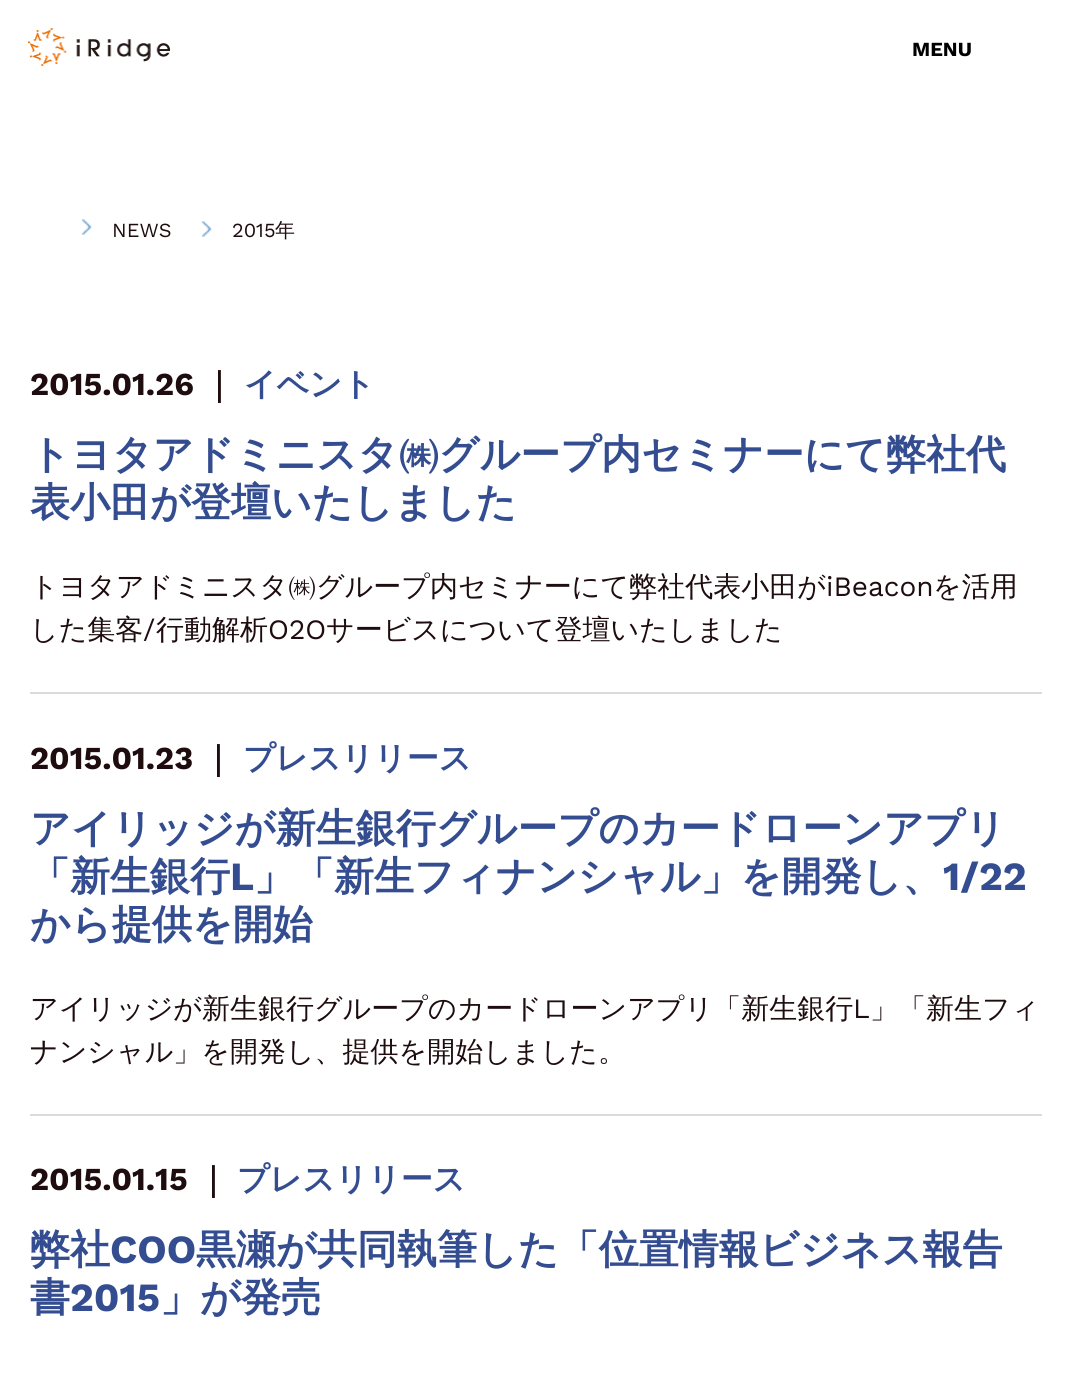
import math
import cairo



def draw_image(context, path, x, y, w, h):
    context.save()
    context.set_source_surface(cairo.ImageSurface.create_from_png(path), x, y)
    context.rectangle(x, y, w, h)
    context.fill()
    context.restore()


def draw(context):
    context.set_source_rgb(1, 1, 1)
    context.paint()
    draw_image(context, "images/1.png", 28, 28, 142, 38)
    draw_image(context, "images/2.png", 82, 219, 10, 16)
    draw_image(context, "images/2.png", 202, 221, 10, 16)
    context.set_source_rgb(219 / 255, 219 / 255, 219 / 255)
    context.rectangle(30, 692, 1012, 2)
    context.fill()
    context.rectangle(30, 1114, 1012, 2)
    context.fill()
    context.select_font_face("Work Sans", cairo.FontSlant.NORMAL, cairo.FontWeight.BOLD)
    context.set_font_size(20)
    context.set_source_rgb(0, 0, 0)
    context.move_to(912, 56)
    context.show_text("MENU")
    context.select_font_face("Work Sans")
    context.set_source_rgb(30 / 255, 12 / 255, 15 / 255)
    context.move_to(112, 237)
    context.show_text("NEWS")
    context.move_to(232, 237)
    context.show_text("2015")
    context.select_font_face("WenQuanYi Zen Hei Medium")
    context.move_to(275, 237)
    context.show_text("年")
    context.select_font_face("Work Sans", cairo.FontSlant.NORMAL, cairo.FontWeight.BOLD)
    context.set_font_size(32)
    context.move_to(30, 395)
    context.show_text("2015.01.26")
    context.select_font_face("WenQuanYi Zen Hei", cairo.FontSlant.NORMAL, cairo.FontWeight.BOLD)
    context.move_to(203, 395)
    context.show_text("｜")
    context.set_source_rgb(51 / 255, 77 / 255, 144 / 255)
    context.move_to(244, 395)
    context.show_text("イベント")
    context.set_font_size(40)
    context.move_to(30, 468)
    context.show_text("トヨタアドミニスタ㈱グループ内セミナーにて弊社代")
    context.move_to(30, 516)
    context.show_text("表小田が登壇いたしました")
    context.select_font_face("WenQuanYi Zen Hei Medium")
    context.set_font_size(28)
    context.set_source_rgb(30 / 255, 12 / 255, 15 / 255)
    context.move_to(30, 596)
    context.show_text("トヨタアドミニスタ㈱グループ内セミナーにて弊社代表小田が")
    context.select_font_face("Work Sans")
    context.move_to(826, 596)
    context.show_text("iBeacon")
    context.select_font_face("WenQuanYi Zen Hei Medium")
    context.move_to(933, 596)
    context.show_text("を活用")
    context.move_to(30, 639)
    context.show_text("した集客")
    context.select_font_face("Work Sans")
    context.move_to(143, 639)
    context.show_text("/")
    context.select_font_face("WenQuanYi Zen Hei Medium")
    context.move_to(156, 639)
    context.show_text("行動解析")
    context.select_font_face("Work Sans")
    context.move_to(268, 639)
    context.show_text("O2O")
    context.select_font_face("WenQuanYi Zen Hei Medium")
    context.move_to(326, 639)
    context.show_text("サービスについて登壇いたしました")
    context.select_font_face("Work Sans", cairo.FontSlant.NORMAL, cairo.FontWeight.BOLD)
    context.set_font_size(32)
    context.move_to(30, 769)
    context.show_text("2015.01.23")
    context.select_font_face("WenQuanYi Zen Hei", cairo.FontSlant.NORMAL, cairo.FontWeight.BOLD)
    context.move_to(202, 769)
    context.show_text("｜")
    context.set_source_rgb(51 / 255, 77 / 255, 144 / 255)
    context.move_to(243, 769)
    context.show_text("プレスリリース")
    context.set_font_size(40)
    context.move_to(30, 842)
    context.show_text("アイリッジが新生銀行グループのカードローンアプリ")
    context.move_to(30, 890)
    context.show_text("「新生銀行")
    context.select_font_face("Work Sans", cairo.FontSlant.NORMAL, cairo.FontWeight.BOLD)
    context.move_to(230, 890)
    context.show_text("L")
    context.select_font_face("WenQuanYi Zen Hei", cairo.FontSlant.NORMAL, cairo.FontWeight.BOLD)
    context.move_to(254, 890)
    context.show_text("」「新生フィナンシャル」を開発し、")
    context.select_font_face("Work Sans", cairo.FontSlant.NORMAL, cairo.FontWeight.BOLD)
    context.move_to(943, 890)
    context.show_text("1/22")
    context.select_font_face("WenQuanYi Zen Hei", cairo.FontSlant.NORMAL, cairo.FontWeight.BOLD)
    context.move_to(30, 938)
    context.show_text("から提供を開始")
    context.select_font_face("WenQuanYi Zen Hei Medium")
    context.set_font_size(28)
    context.set_source_rgb(30 / 255, 12 / 255, 15 / 255)
    context.move_to(30, 1018)
    context.show_text("アイリッジが新生銀行グループのカードローンアプリ「新生銀行")
    context.select_font_face("Work Sans")
    context.move_to(853, 1018)
    context.show_text("L")
    context.select_font_face("WenQuanYi Zen Hei Medium")
    context.move_to(870, 1018)
    context.show_text("」「新生フィ")
    context.move_to(30, 1061)
    context.show_text("ナンシャル」を開発し、提供を開始しました。")
    context.select_font_face("Work Sans", cairo.FontSlant.NORMAL, cairo.FontWeight.BOLD)
    context.set_font_size(32)
    context.move_to(30, 1190)
    context.show_text("2015.01.15")
    context.select_font_face("WenQuanYi Zen Hei", cairo.FontSlant.NORMAL, cairo.FontWeight.BOLD)
    context.move_to(197, 1190)
    context.show_text("｜")
    context.set_source_rgb(51 / 255, 77 / 255, 144 / 255)
    context.move_to(237, 1190)
    context.show_text("プレスリリース")
    context.set_font_size(40)
    context.move_to(30, 1263)
    context.show_text("弊社")
    context.select_font_face("Work Sans", cairo.FontSlant.NORMAL, cairo.FontWeight.BOLD)
    context.move_to(110, 1263)
    context.show_text("COO")
    context.select_font_face("WenQuanYi Zen Hei", cairo.FontSlant.NORMAL, cairo.FontWeight.BOLD)
    context.move_to(196, 1263)
    context.show_text("黒瀬が共同執筆した「位置情報ビジネス報告")
    context.move_to(30, 1311)
    context.show_text("書")
    context.select_font_face("Work Sans", cairo.FontSlant.NORMAL, cairo.FontWeight.BOLD)
    context.move_to(70, 1311)
    context.show_text("2015")
    context.select_font_face("WenQuanYi Zen Hei", cairo.FontSlant.NORMAL, cairo.FontWeight.BOLD)
    context.move_to(160, 1311)
    context.show_text("」が発売")


surface = cairo.ImageSurface(cairo.Format.RGB24, 1072, 1379)
context = cairo.Context(surface)
options = cairo.FontOptions()
options.set_hint_metrics(cairo.HintMetrics.OFF)
options.set_hint_style(cairo.HintStyle.NONE)
context.set_font_options(options)
context.set_miter_limit(4)
draw(context)
surface.write_to_png("out.png")
